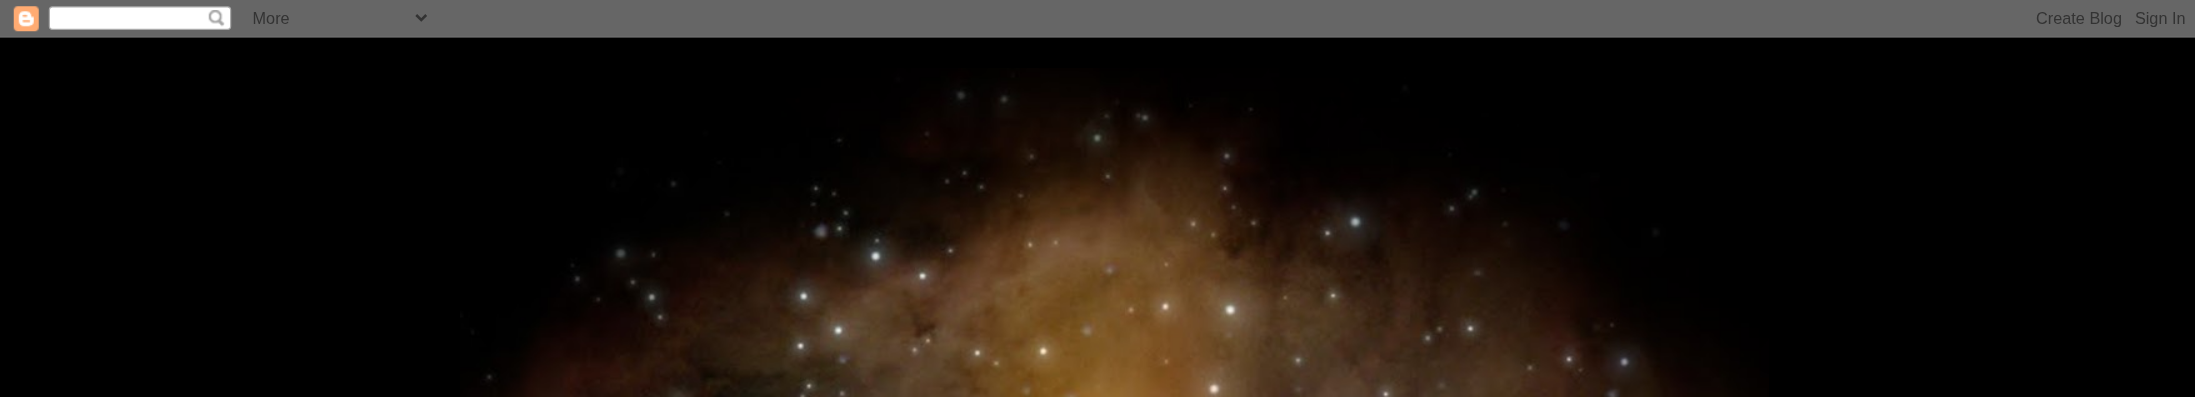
import math
import cairo



def draw_image(context, path, x, y, w, h):
    context.save()
    context.set_source_surface(cairo.ImageSurface.create_from_png(path), x, y)
    context.rectangle(x, y, w, h)
    context.fill()
    context.restore()


def draw(context):
    context.set_source_rgb(0, 0, 0)
    context.paint()
    draw_image(context, "images/1.png", 0, 0, 2195, 38)
    draw_image(context, "images/2.png", 460, 68, 1309, 329)


surface = cairo.ImageSurface(cairo.Format.RGB24, 2195, 397)
context = cairo.Context(surface)
options = cairo.FontOptions()
options.set_hint_metrics(cairo.HintMetrics.OFF)
options.set_hint_style(cairo.HintStyle.NONE)
context.set_font_options(options)
context.set_miter_limit(4)
draw(context)
surface.write_to_png("out.png")
